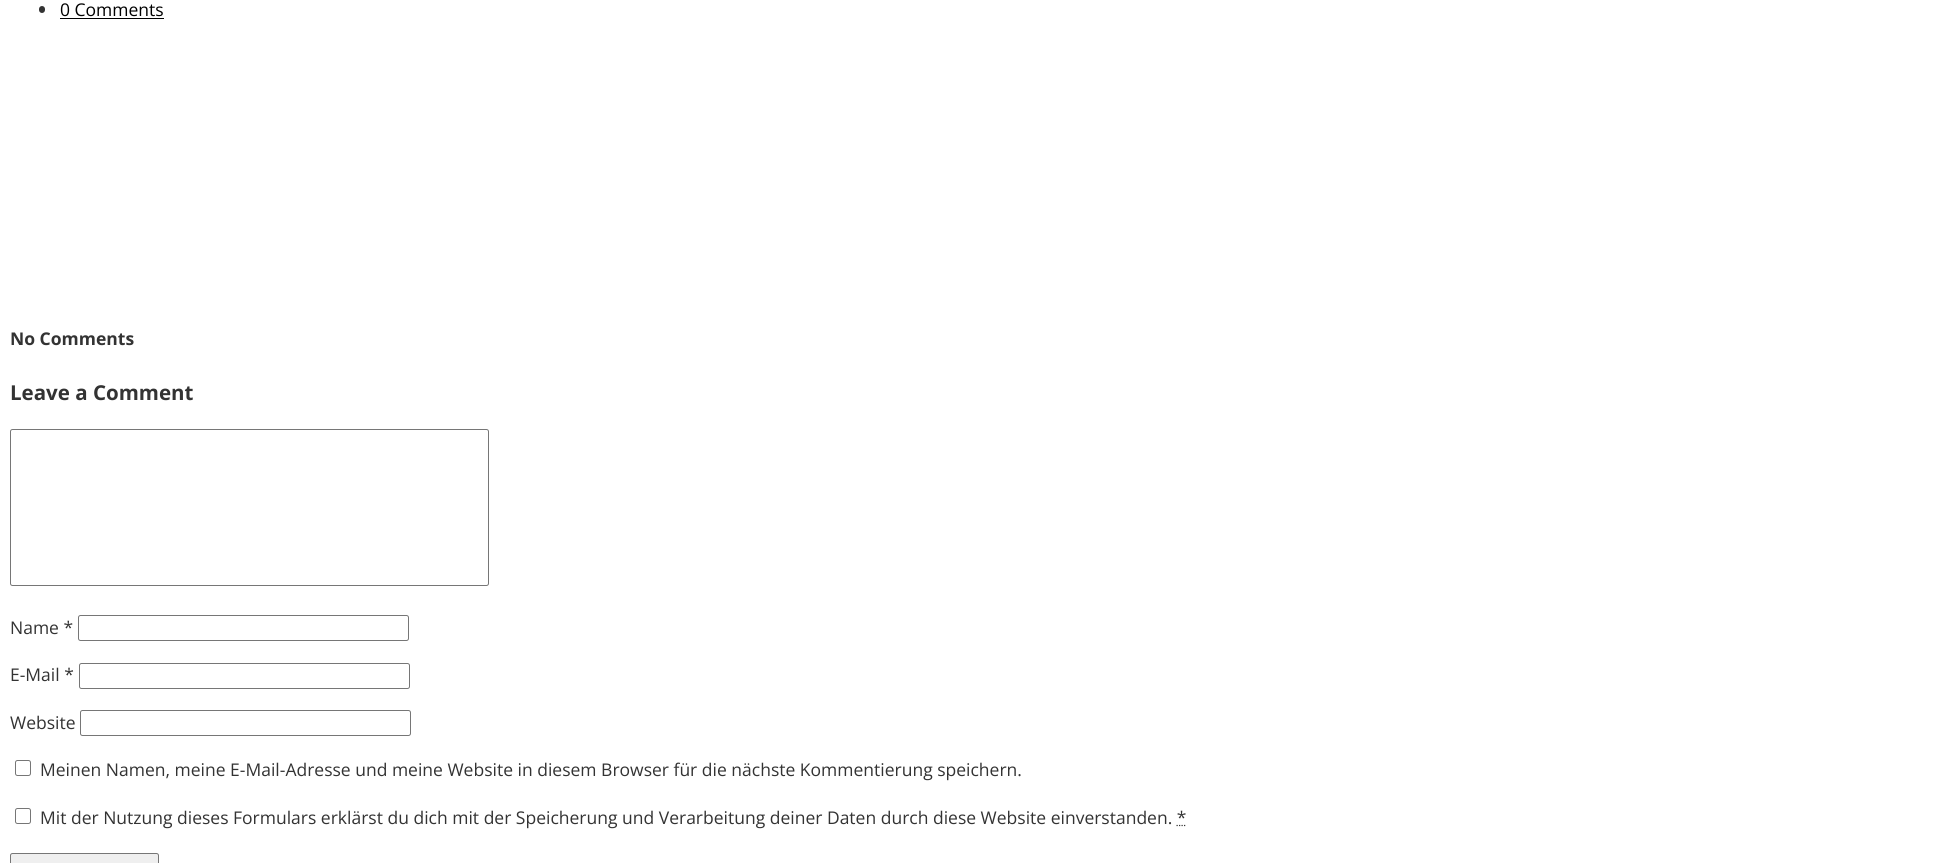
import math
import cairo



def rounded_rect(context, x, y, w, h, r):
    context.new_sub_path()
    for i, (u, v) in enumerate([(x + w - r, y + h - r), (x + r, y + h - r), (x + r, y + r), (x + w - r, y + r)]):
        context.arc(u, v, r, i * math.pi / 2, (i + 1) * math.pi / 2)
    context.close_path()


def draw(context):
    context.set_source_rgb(1, 1, 1)
    context.paint()
    context.set_source_rgb(51 / 255, 51 / 255, 51 / 255)
    rounded_rect(context, 39, 6, 6, 7, 3)
    context.fill()
    context.set_source_rgb(0, 0, 0)
    context.rectangle(60, 18, 104, 1)
    context.fill()
    rounded_rect(context, 10.5, 429.5, 478, 156, 2)
    context.set_source_rgb(118 / 255, 118 / 255, 118 / 255)
    context.set_line_width(1)
    context.stroke()
    rounded_rect(context, 78.5, 615.5, 330, 25, 2)
    context.stroke()
    rounded_rect(context, 79.5, 663.5, 330, 25, 2)
    context.stroke()
    rounded_rect(context, 80.5, 710.5, 330, 25, 2)
    context.stroke()
    rounded_rect(context, 15.5, 760.5, 15, 15, 2)
    context.stroke()
    rounded_rect(context, 15.5, 808.5, 15, 15, 2)
    context.stroke()
    context.new_path()
    context.move_to(1176.5, 825.5)
    context.line_to(1186, 825.5)
    context.set_source_rgb(51 / 255, 51 / 255, 51 / 255)
    context.set_line_width(1.2)
    context.set_dash([1.25, 1.25])
    context.stroke()
    context.set_source_rgb(239 / 255, 239 / 255, 239 / 255)
    rounded_rect(context, 10.5, 853.5, 148, 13, 2)
    context.fill_preserve()
    context.set_source_rgb(118 / 255, 118 / 255, 118 / 255)
    context.set_line_width(1)
    context.set_dash([])
    context.stroke()
    context.select_font_face("Open Sans")
    context.set_font_size(17.5)
    context.set_source_rgb(0, 0, 0)
    context.move_to(60, 16)
    context.show_text("0 Comments")
    context.select_font_face("Open Sans", cairo.FontSlant.NORMAL, cairo.FontWeight.BOLD)
    context.set_source_rgb(51 / 255, 51 / 255, 51 / 255)
    context.move_to(10, 345)
    context.show_text("No Comments")
    context.set_font_size(20.5)
    context.move_to(10, 400)
    context.show_text("Leave a Comment")
    context.select_font_face("Open Sans")
    context.set_font_size(17.5)
    context.move_to(10, 634)
    context.show_text("Name *")
    context.move_to(10, 681)
    context.show_text("E-Mail *")
    context.move_to(10, 729)
    context.show_text("Website")
    context.move_to(40, 776)
    context.show_text("Meinen Namen, meine E-Mail-Adresse und meine Website in diesem Browser für die nächste Kommentierung speichern.")
    context.move_to(40, 824)
    context.show_text("Mit der Nutzung dieses Formulars erklärst du dich mit der Speicherung und Verarbeitung deiner Daten durch diese Website einverstanden. *")


surface = cairo.ImageSurface(cairo.Format.RGB24, 1957, 863)
context = cairo.Context(surface)
options = cairo.FontOptions()
options.set_hint_metrics(cairo.HintMetrics.OFF)
options.set_hint_style(cairo.HintStyle.NONE)
context.set_font_options(options)
context.set_miter_limit(4)
draw(context)
surface.write_to_png("out.png")
